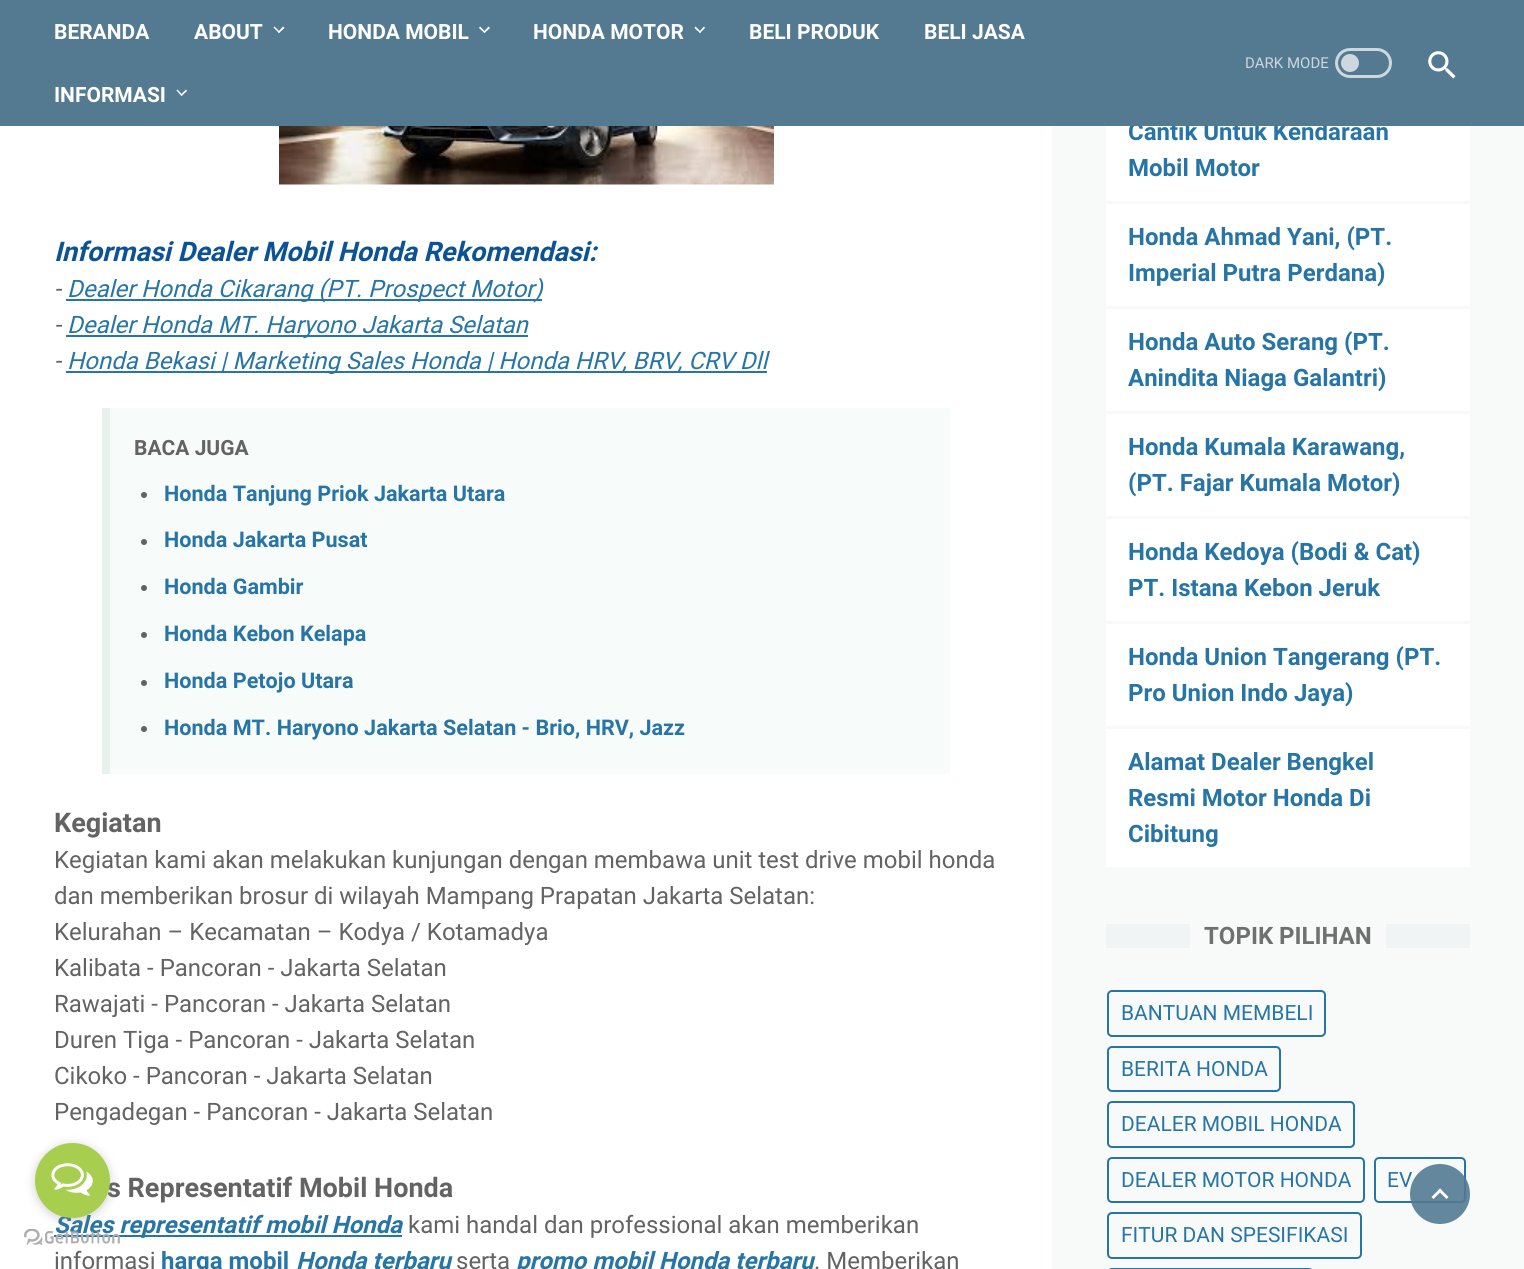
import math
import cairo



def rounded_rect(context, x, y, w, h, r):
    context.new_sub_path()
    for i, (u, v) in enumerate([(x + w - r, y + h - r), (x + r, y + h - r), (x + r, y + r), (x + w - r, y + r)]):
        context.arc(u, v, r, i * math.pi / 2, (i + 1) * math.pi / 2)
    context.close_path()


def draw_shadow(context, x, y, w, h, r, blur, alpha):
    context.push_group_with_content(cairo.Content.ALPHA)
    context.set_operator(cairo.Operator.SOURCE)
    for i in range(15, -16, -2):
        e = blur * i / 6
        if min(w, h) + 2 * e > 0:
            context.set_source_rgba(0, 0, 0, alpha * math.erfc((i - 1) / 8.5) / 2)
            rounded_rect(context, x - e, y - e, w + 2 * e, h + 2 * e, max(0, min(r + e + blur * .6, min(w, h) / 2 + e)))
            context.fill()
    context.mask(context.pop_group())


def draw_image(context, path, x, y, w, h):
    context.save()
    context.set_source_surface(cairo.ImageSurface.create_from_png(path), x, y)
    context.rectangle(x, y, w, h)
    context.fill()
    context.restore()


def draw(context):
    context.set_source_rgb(1, 1, 1)
    context.paint()
    draw_image(context, "images/2.png", 279, 126, 495, 59)
    context.set_source_rgb(38 / 255, 117 / 255, 166 / 255)
    context.rectangle(66, 299, 476, 2)
    context.fill()
    context.rectangle(66, 335, 462, 2)
    context.fill()
    context.rectangle(66, 371, 701, 2)
    context.fill()
    context.set_source_rgb(247 / 255, 251 / 255, 249 / 255)
    context.rectangle(110, 408, 840, 366)
    context.fill()
    context.set_source_rgb(230 / 255, 242 / 255, 235 / 255)
    context.rectangle(102, 408, 8, 366)
    context.fill()
    context.set_source_rgb(99 / 255, 99 / 255, 99 / 255)
    context.arc(144, 495, 3, 0, 2 * math.pi)
    context.fill()
    context.arc(144, 542, 3, 0, 2 * math.pi)
    context.fill()
    context.arc(144, 588, 3, 0, 2 * math.pi)
    context.fill()
    context.arc(144, 635, 3, 0, 2 * math.pi)
    context.fill()
    context.arc(144, 683, 3, 0, 2 * math.pi)
    context.fill()
    context.arc(144, 729, 3, 0, 2 * math.pi)
    context.fill()
    context.set_source_rgb(38 / 255, 117 / 255, 166 / 255)
    context.rectangle(54, 1235, 348, 2)
    context.fill()
    context.set_source_rgb(248 / 255, 250 / 255, 250 / 255)
    context.rectangle(1052, 126, 472, 1143)
    context.fill()
    context.set_source_rgb(1, 1, 1)
    context.rectangle(1106, 126, 364, 75)
    context.fill()
    context.rectangle(1106, 204, 364, 102)
    context.fill()
    context.rectangle(1106, 309, 364, 102)
    context.fill()
    context.rectangle(1106, 414, 364, 102)
    context.fill()
    context.rectangle(1106, 519, 364, 102)
    context.fill()
    context.rectangle(1106, 624, 364, 102)
    context.fill()
    context.rectangle(1106, 729, 364, 138)
    context.fill()
    context.set_source_rgb(240 / 255, 244 / 255, 244 / 255)
    context.rectangle(1106, 924, 364, 24)
    context.fill()
    context.set_source_rgb(248 / 255, 250 / 255, 250 / 255)
    context.rectangle(1190, 924, 196, 24)
    context.fill()
    rounded_rect(context, 1108, 991, 217, 45, 4)
    context.set_source_rgb(38 / 255, 117 / 255, 166 / 255)
    context.stroke()
    rounded_rect(context, 1108, 1047, 172, 44, 4)
    context.stroke()
    rounded_rect(context, 1108, 1102, 246, 45, 4)
    context.stroke()
    rounded_rect(context, 1108, 1158, 256, 44, 4)
    context.stroke()
    rounded_rect(context, 1375, 1158, 90, 44, 4)
    context.stroke()
    rounded_rect(context, 1108, 1213, 253, 45, 4)
    context.stroke()
    rounded_rect(context, 1108, 1269, 205, 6, 4)
    context.stroke()
    context.select_font_face("Roboto", cairo.FontSlant.ITALIC, cairo.FontWeight.BOLD)
    context.set_font_size(27)
    context.set_source_rgb(11 / 255, 83 / 255, 148 / 255)
    context.move_to(54, 261)
    context.show_text("Informasi Dealer Mobil Honda Rekomendasi:")
    context.select_font_face("Roboto", cairo.FontSlant.ITALIC)
    context.set_font_size(24)
    context.set_source_rgb(99 / 255, 99 / 255, 99 / 255)
    context.move_to(54, 297)
    context.show_text("-")
    context.set_source_rgb(38 / 255, 117 / 255, 166 / 255)
    context.move_to(67, 297)
    context.show_text("Dealer Honda Cikarang (PT. Prospect Motor)")
    context.set_source_rgb(99 / 255, 99 / 255, 99 / 255)
    context.move_to(54, 333)
    context.show_text("-")
    context.set_source_rgb(38 / 255, 117 / 255, 166 / 255)
    context.move_to(67, 333)
    context.show_text("Dealer Honda MT. Haryono Jakarta Selatan")
    context.set_source_rgb(99 / 255, 99 / 255, 99 / 255)
    context.move_to(54, 369)
    context.show_text("-")
    context.set_source_rgb(38 / 255, 117 / 255, 166 / 255)
    context.move_to(67, 369)
    context.show_text("Honda Bekasi | Marketing Sales Honda | Honda HRV, BRV, CRV Dll")
    context.select_font_face("Roboto", cairo.FontSlant.NORMAL, cairo.FontWeight.BOLD)
    context.set_font_size(21)
    context.set_source_rgb(99 / 255, 99 / 255, 99 / 255)
    context.move_to(134, 455)
    context.show_text("BACA JUGA")
    context.set_font_size(21.6)
    context.set_source_rgb(38 / 255, 117 / 255, 166 / 255)
    context.move_to(164, 501)
    context.show_text("Honda Tanjung Priok Jakarta Utara")
    context.move_to(164, 547)
    context.show_text("Honda Jakarta Pusat")
    context.move_to(164, 594)
    context.show_text("Honda Gambir")
    context.move_to(164, 641)
    context.show_text("Honda Kebon Kelapa")
    context.move_to(164, 688)
    context.show_text("Honda Petojo Utara")
    context.move_to(164, 735)
    context.show_text("Honda MT. Haryono Jakarta Selatan - Brio, HRV, Jazz")
    context.set_font_size(27)
    context.set_source_rgb(99 / 255, 99 / 255, 99 / 255)
    context.move_to(54, 832)
    context.show_text("Kegiatan")
    context.select_font_face("Roboto")
    context.set_font_size(24)
    context.move_to(54, 868)
    context.show_text("Kegiatan kami akan melakukan kunjungan dengan membawa unit test drive mobil honda")
    context.move_to(54, 904)
    context.show_text("dan memberikan brosur di wilayah Mampang Prapatan Jakarta Selatan:")
    context.move_to(54, 940)
    context.show_text("Kelurahan – Kecamatan – Kodya / Kotamadya")
    context.move_to(54, 976)
    context.show_text("Kalibata - Pancoran - Jakarta Selatan")
    context.move_to(54, 1012)
    context.show_text("Rawajati - Pancoran - Jakarta Selatan")
    context.move_to(54, 1048)
    context.show_text("Duren Tiga - Pancoran - Jakarta Selatan")
    context.move_to(54, 1084)
    context.show_text("Cikoko - Pancoran - Jakarta Selatan")
    context.move_to(54, 1120)
    context.show_text("Pengadegan - Pancoran - Jakarta Selatan")
    context.select_font_face("Roboto", cairo.FontSlant.NORMAL, cairo.FontWeight.BOLD)
    context.set_font_size(27)
    context.move_to(107, 1197)
    context.show_text("s Representatif Mobil Honda")
    context.select_font_face("Roboto", cairo.FontSlant.ITALIC, cairo.FontWeight.BOLD)
    context.set_font_size(24)
    context.set_source_rgb(38 / 255, 117 / 255, 166 / 255)
    context.move_to(54, 1233)
    context.show_text("Sales representatif mobil Honda")
    context.select_font_face("Roboto")
    context.set_source_rgb(99 / 255, 99 / 255, 99 / 255)
    context.move_to(408, 1233)
    context.show_text("kami handal dan professional akan memberikan")
    context.move_to(54, 1269)
    context.show_text("informasi")
    context.select_font_face("Roboto", cairo.FontSlant.NORMAL, cairo.FontWeight.BOLD)
    context.set_source_rgb(38 / 255, 117 / 255, 166 / 255)
    context.move_to(161, 1269)
    context.show_text("harga mobil")
    context.select_font_face("Roboto", cairo.FontSlant.ITALIC, cairo.FontWeight.BOLD)
    context.move_to(296, 1269)
    context.show_text("Honda terbaru")
    context.select_font_face("Roboto")
    context.set_source_rgb(99 / 255, 99 / 255, 99 / 255)
    context.move_to(456, 1269)
    context.show_text("serta")
    context.select_font_face("Roboto", cairo.FontSlant.ITALIC, cairo.FontWeight.BOLD)
    context.set_source_rgb(38 / 255, 117 / 255, 166 / 255)
    context.move_to(516, 1269)
    context.show_text("promo mobil Honda terbaru")
    context.select_font_face("Roboto")
    context.set_source_rgb(99 / 255, 99 / 255, 99 / 255)
    context.move_to(814, 1269)
    context.show_text(". Memberikan")
    context.select_font_face("Roboto", cairo.FontSlant.NORMAL, cairo.FontWeight.BOLD)
    context.set_source_rgb(38 / 255, 117 / 255, 166 / 255)
    context.move_to(1128, 140)
    context.show_text("Cantik Untuk Kendaraan")
    context.set_source_rgb(84 / 255, 122 / 255, 146 / 255)
    context.rectangle(0, 0, 1524, 126)
    context.fill()
    rounded_rect(context, 1336.5, 49.5, 54, 27, 13.5)
    context.set_source_rgb(204 / 255, 215 / 255, 222 / 255)
    context.set_line_width(3)
    context.stroke()
    context.arc(1350, 63, 9, 0, 2 * math.pi)
    context.fill()
    context.select_font_face("Roboto")
    context.set_font_size(15)
    context.move_to(1245, 68)
    context.show_text("DARK MODE")
    context.set_source_rgb(1, 1, 1)
    context.new_path()
    context.move_to(180.5, 95)
    context.line_to(186, 89.5)
    context.line_to(187, 91)
    context.line_to(181.5, 96)
    context.close_path()
    context.fill()
    context.new_path()
    context.move_to(176.5, 90.5)
    context.line_to(177.5, 89.5)
    context.line_to(182.5, 95)
    context.line_to(181.5, 96)
    context.close_path()
    context.fill()
    context.select_font_face("Roboto", cairo.FontSlant.NORMAL, cairo.FontWeight.BOLD)
    context.set_font_size(21)
    context.move_to(54, 102)
    context.show_text("INFORMASI")
    context.move_to(924, 39)
    context.show_text("BELI JASA")
    context.move_to(749, 39)
    context.show_text("BELI PRODUK")
    context.new_path()
    context.move_to(699, 32)
    context.line_to(704, 26.5)
    context.line_to(705, 28)
    context.line_to(700, 33)
    context.close_path()
    context.fill()
    context.new_path()
    context.move_to(694.5, 28)
    context.line_to(695.5, 26.5)
    context.line_to(701, 32)
    context.line_to(700, 33)
    context.close_path()
    context.fill()
    context.move_to(533, 39)
    context.show_text("HONDA MOTOR")
    context.new_path()
    context.move_to(483.5, 32)
    context.line_to(488.5, 26.5)
    context.line_to(490, 28)
    context.line_to(484.5, 33)
    context.close_path()
    context.fill()
    context.new_path()
    context.move_to(479, 28)
    context.line_to(480, 26.5)
    context.line_to(485.5, 32)
    context.line_to(484.5, 33)
    context.close_path()
    context.fill()
    context.move_to(328, 39)
    context.show_text("HONDA MOBIL")
    context.new_path()
    context.move_to(278, 32)
    context.line_to(283, 26.5)
    context.line_to(284.5, 28)
    context.line_to(279, 33)
    context.close_path()
    context.fill()
    context.new_path()
    context.move_to(273.5, 27.5)
    context.line_to(274.5, 26.5)
    context.line_to(280, 32)
    context.line_to(279, 33)
    context.close_path()
    context.fill()
    context.move_to(194, 39)
    context.show_text("ABOUT")
    context.move_to(54, 39)
    context.show_text("BERANDA")
    draw_image(context, "images/1.png", 1428, 51, 28, 28)
    context.set_font_size(24)
    context.set_source_rgb(38 / 255, 117 / 255, 166 / 255)
    context.move_to(1128, 176)
    context.show_text("Mobil Motor")
    context.move_to(1128, 245)
    context.show_text("Honda Ahmad Yani, (PT.")
    context.move_to(1128, 281)
    context.show_text("Imperial Putra Perdana)")
    context.move_to(1128, 350)
    context.show_text("Honda Auto Serang (PT.")
    context.move_to(1128, 386)
    context.show_text("Anindita Niaga Galantri)")
    context.move_to(1128, 455)
    context.show_text("Honda Kumala Karawang,")
    context.move_to(1128, 491)
    context.show_text("(PT. Fajar Kumala Motor)")
    context.move_to(1128, 560)
    context.show_text("Honda Kedoya (Bodi & Cat)")
    context.move_to(1128, 596)
    context.show_text("PT. Istana Kebon Jeruk")
    context.move_to(1128, 665)
    context.show_text("Honda Union Tangerang (PT.")
    context.move_to(1128, 701)
    context.show_text("Pro Union Indo Jaya)")
    context.move_to(1128, 770)
    context.show_text("Alamat Dealer Bengkel")
    context.move_to(1128, 806)
    context.show_text("Resmi Motor Honda Di")
    context.move_to(1128, 842)
    context.show_text("Cibitung")
    context.set_source_rgb(112 / 255, 112 / 255, 112 / 255)
    context.move_to(1204, 944)
    context.show_text("TOPIK PILIHAN")
    context.select_font_face("Roboto")
    context.set_font_size(21)
    context.set_source_rgb(38 / 255, 117 / 255, 166 / 255)
    context.move_to(1121, 1020)
    context.show_text("BANTUAN MEMBELI")
    context.move_to(1121, 1076)
    context.show_text("BERITA HONDA")
    context.move_to(1121, 1131)
    context.show_text("DEALER MOBIL HONDA")
    context.move_to(1121, 1187)
    context.show_text("DEALER MOTOR HONDA")
    context.move_to(1387, 1187)
    context.show_text("EV")
    context.move_to(1121, 1242)
    context.show_text("FITUR DAN SPESIFIKASI")
    draw_image(context, "images/4.png", 24, 1229, 96, 16)
    context.set_source_rgb(136 / 255, 136 / 255, 136 / 255)
    draw_shadow(context, 35, 1145, 75, 75, 37.5, 5, 0.4)
    context.set_source_rgb(168 / 255, 206 / 255, 80 / 255)
    context.arc(72.5, 1180.5, 37.5, 0, 2 * math.pi)
    context.fill()
    draw_image(context, "images/3.png", 51, 1163, 42, 33)
    context.set_source_rgba(84 / 255, 122 / 255, 146 / 255, 0.9)
    context.arc(1440, 1194, 30, 0, 2 * math.pi)
    context.fill()
    context.set_source_rgb(254 / 255, 1, 1)
    context.new_path()
    context.move_to(1431.5, 1197)
    context.line_to(1440, 1188.5)
    context.line_to(1442, 1190.5)
    context.line_to(1433.5, 1199)
    context.close_path()
    context.fill()
    context.new_path()
    context.move_to(1438, 1190.5)
    context.line_to(1440, 1188.5)
    context.line_to(1448.5, 1197)
    context.line_to(1446.5, 1199)
    context.close_path()
    context.fill()


surface = cairo.ImageSurface(cairo.Format.RGB24, 1524, 1269)
context = cairo.Context(surface)
options = cairo.FontOptions()
options.set_hint_metrics(cairo.HintMetrics.OFF)
options.set_hint_style(cairo.HintStyle.NONE)
context.set_font_options(options)
context.set_miter_limit(4)
draw(context)
surface.write_to_png("out.png")
